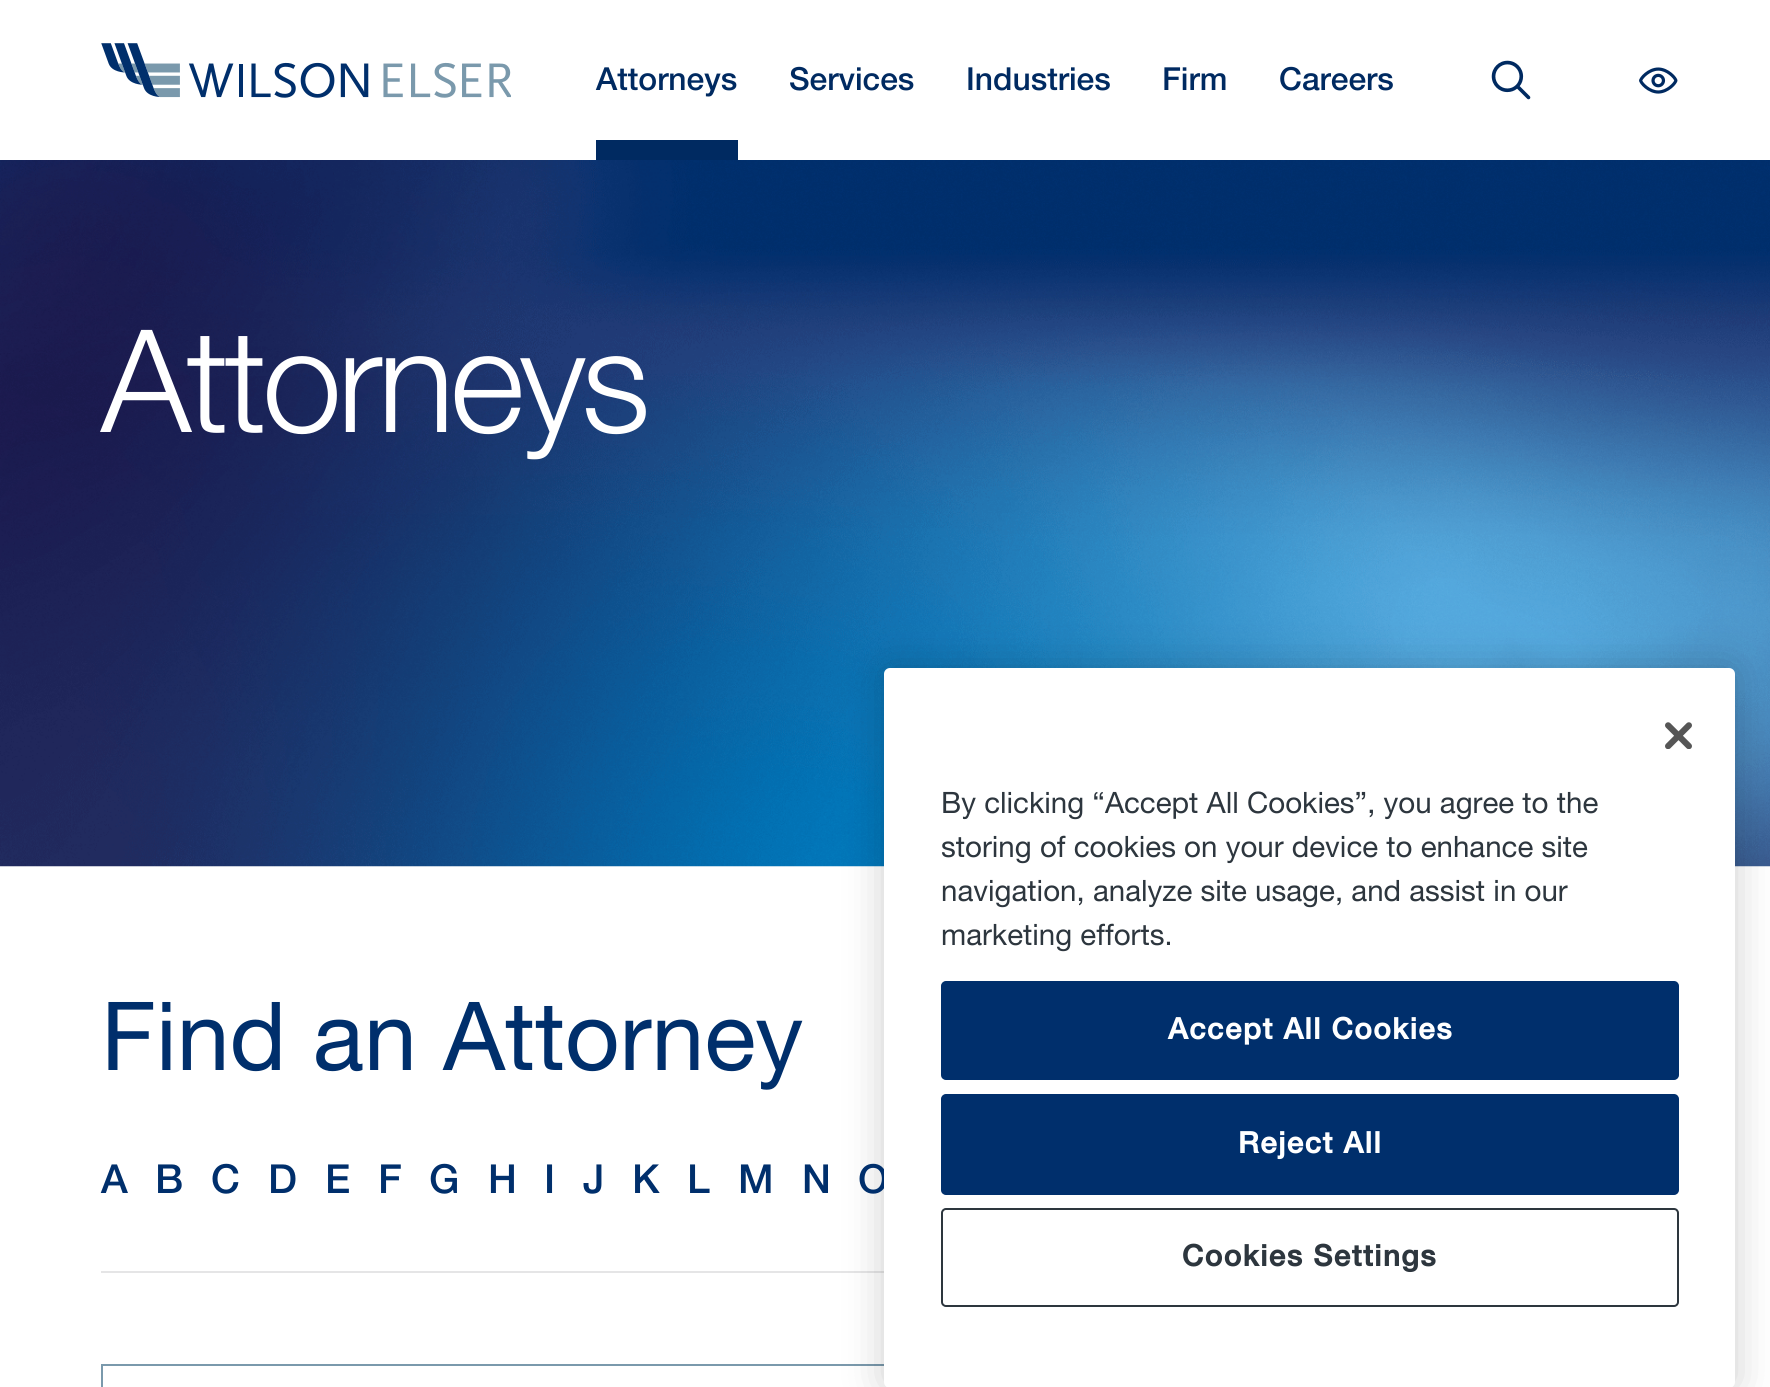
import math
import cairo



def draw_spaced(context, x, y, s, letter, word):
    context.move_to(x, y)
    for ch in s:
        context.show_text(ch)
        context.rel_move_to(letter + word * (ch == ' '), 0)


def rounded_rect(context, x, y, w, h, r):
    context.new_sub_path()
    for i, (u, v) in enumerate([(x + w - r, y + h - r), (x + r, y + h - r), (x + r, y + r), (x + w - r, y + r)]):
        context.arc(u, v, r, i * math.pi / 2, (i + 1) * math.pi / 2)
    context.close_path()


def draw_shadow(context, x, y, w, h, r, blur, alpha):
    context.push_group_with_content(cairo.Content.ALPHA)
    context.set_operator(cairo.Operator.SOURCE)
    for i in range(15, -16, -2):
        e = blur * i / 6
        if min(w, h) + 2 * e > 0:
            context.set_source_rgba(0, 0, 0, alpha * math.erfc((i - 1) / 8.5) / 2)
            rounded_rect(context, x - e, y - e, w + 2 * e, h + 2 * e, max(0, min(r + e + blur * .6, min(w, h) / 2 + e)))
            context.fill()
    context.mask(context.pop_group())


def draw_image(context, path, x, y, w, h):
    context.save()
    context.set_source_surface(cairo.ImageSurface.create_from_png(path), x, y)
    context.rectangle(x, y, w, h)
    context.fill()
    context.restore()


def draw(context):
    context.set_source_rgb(1, 1, 1)
    context.paint()
    draw_image(context, "images/1.png", 101, 43, 410, 55)
    context.set_source_rgb(0, 42 / 255, 97 / 255)
    context.rectangle(596, 140, 142, 20)
    context.fill()
    draw_image(context, "images/2.png", 1491, 60, 40, 40)
    draw_image(context, "images/3.png", 1639, 67, 39, 27)
    draw_image(context, "images/4.png", 0, 160, 1770, 707)
    context.set_source_rgb(229 / 255, 229 / 255, 230 / 255)
    context.rectangle(101, 1271, 783, 2)
    context.fill()
    context.rectangle(102, 1365, 1567, 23)
    context.set_source_rgb(122 / 255, 153 / 255, 172 / 255)
    context.stroke()
    context.set_source_rgb(0, 0, 0)
    draw_shadow(context, 884, 668, 851, 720, 6, 20, 0.2)
    context.select_font_face("Helvetica Neue Medium")
    context.set_font_size(31.75)
    context.set_source_rgb(0, 42 / 255, 97 / 255)
    context.move_to(596, 90)
    context.show_text("Attorneys")
    context.move_to(789, 90)
    context.show_text("Services")
    context.move_to(966, 90)
    context.show_text("Industries")
    context.move_to(1162, 90)
    context.show_text("Firm")
    context.move_to(1279, 90)
    context.show_text("Careers")
    context.select_font_face("Helvetica Neue Light")
    context.set_font_size(143)
    context.set_source_rgb(1, 1, 1)
    draw_spaced(context, 101, 432, "Attorneys", -4.5, 0)
    context.select_font_face("Helvetica Neue")
    context.set_font_size(95.25)
    context.set_source_rgb(0, 47 / 255, 108 / 255)
    context.move_to(101, 1070)
    context.show_text("Find an Attorney")
    context.select_font_face("Helvetica Neue Medium")
    context.set_font_size(40)
    context.move_to(101, 1193)
    context.show_text("A")
    context.move_to(155, 1193)
    context.show_text("B")
    context.move_to(211, 1193)
    context.show_text("C")
    context.move_to(268, 1193)
    context.show_text("D")
    context.move_to(325, 1193)
    context.show_text("E")
    context.move_to(378, 1193)
    context.show_text("F")
    context.move_to(429, 1193)
    context.show_text("G")
    context.move_to(488, 1193)
    context.show_text("H")
    context.move_to(544, 1193)
    context.show_text("I")
    context.move_to(583, 1193)
    context.show_text("J")
    context.move_to(632, 1193)
    context.show_text("K")
    context.move_to(687, 1193)
    context.show_text("L")
    context.move_to(738, 1193)
    context.show_text("M")
    context.move_to(802, 1193)
    context.show_text("N")
    context.move_to(858, 1193)
    context.show_text("O")
    context.set_source_rgb(1, 1, 1)
    rounded_rect(context, 884, 668, 851, 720, 6)
    context.fill()
    draw_image(context, "images/5.png", 1665, 722, 27, 27)
    context.select_font_face("Helvetica Neue")
    context.set_font_size(29.5)
    context.set_source_rgb(45 / 255, 54 / 255, 62 / 255)
    context.move_to(941, 813)
    context.show_text("By clicking “Accept All Cookies”, you agree to the")
    context.move_to(941, 857)
    context.show_text("storing of cookies on your device to enhance site")
    context.move_to(941, 901)
    context.show_text("navigation, analyze site usage, and assist in our")
    context.move_to(941, 945)
    context.show_text("marketing efforts.")
    context.set_source_rgb(0, 47 / 255, 108 / 255)
    rounded_rect(context, 942, 982, 736, 97, 4)
    context.fill_preserve()
    context.stroke()
    context.select_font_face("Helvetica Neue", cairo.FontSlant.NORMAL, cairo.FontWeight.BOLD)
    context.set_source_rgb(1, 1, 1)
    draw_spaced(context, 1168, 1039, "Accept All Cookies", 1.5, 0)
    context.set_source_rgb(0, 47 / 255, 108 / 255)
    rounded_rect(context, 942, 1095, 736, 99, 4)
    context.fill_preserve()
    context.stroke()
    context.set_source_rgb(1, 1, 1)
    draw_spaced(context, 1238, 1153, "Reject All", 1.5, 0)
    rounded_rect(context, 942, 1209, 736, 97, 4)
    context.set_source_rgb(45 / 255, 54 / 255, 62 / 255)
    context.stroke()
    draw_spaced(context, 1182, 1266, "Cookies Settings", 1.5, 0)


surface = cairo.ImageSurface(cairo.Format.RGB24, 1770, 1387)
context = cairo.Context(surface)
options = cairo.FontOptions()
options.set_hint_metrics(cairo.HintMetrics.OFF)
options.set_hint_style(cairo.HintStyle.NONE)
context.set_font_options(options)
context.set_miter_limit(4)
draw(context)
surface.write_to_png("out.png")
